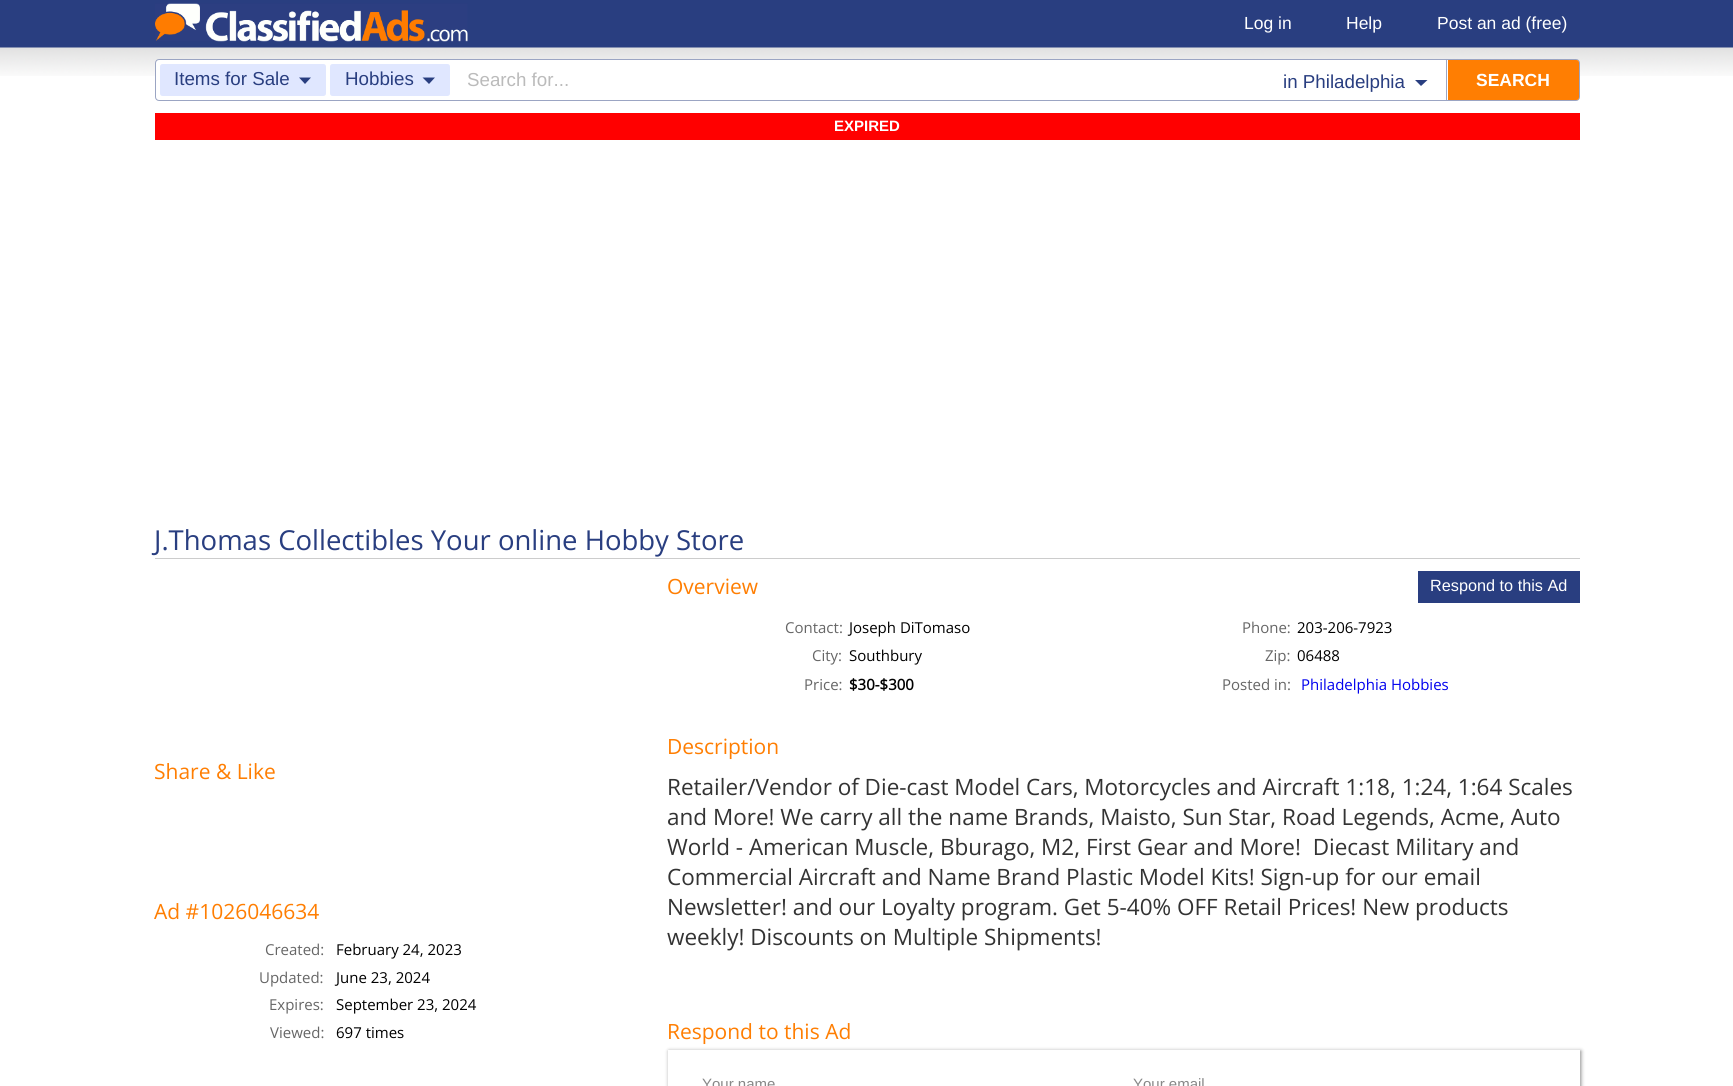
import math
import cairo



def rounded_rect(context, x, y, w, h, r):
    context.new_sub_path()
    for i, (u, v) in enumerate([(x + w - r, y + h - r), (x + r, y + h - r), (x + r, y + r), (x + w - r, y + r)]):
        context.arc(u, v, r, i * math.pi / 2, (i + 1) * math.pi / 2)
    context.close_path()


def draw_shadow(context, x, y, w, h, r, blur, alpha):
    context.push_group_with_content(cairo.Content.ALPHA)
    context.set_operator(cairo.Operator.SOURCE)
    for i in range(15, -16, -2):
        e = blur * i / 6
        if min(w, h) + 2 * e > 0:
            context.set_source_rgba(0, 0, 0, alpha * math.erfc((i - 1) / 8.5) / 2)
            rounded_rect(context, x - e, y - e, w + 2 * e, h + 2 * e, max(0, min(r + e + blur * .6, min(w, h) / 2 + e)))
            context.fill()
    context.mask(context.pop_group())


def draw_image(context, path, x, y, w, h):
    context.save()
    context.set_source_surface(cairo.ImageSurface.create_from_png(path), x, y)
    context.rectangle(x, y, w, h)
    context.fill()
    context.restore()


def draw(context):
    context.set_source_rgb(1, 1, 1)
    context.paint()
    context.set_source_rgb(41 / 255, 62 / 255, 128 / 255)
    context.rectangle(0, 0, 1733, 48)
    context.fill()
    draw_image(context, "images/1.png", 155, 3, 313, 39)
    draw_image(context, "images/2.png", 0, 47, 1733, 29)
    context.set_source_rgb(1, 1, 1)
    rounded_rect(context, 155.5, 59.5, 1424, 41, 3.5)
    context.fill_preserve()
    context.set_source_rgb(155 / 255, 165 / 255, 195 / 255)
    context.set_line_width(1)
    context.stroke()
    context.set_source_rgb(224 / 255, 231 / 255, 1)
    rounded_rect(context, 160, 64, 166, 32, 2.5)
    context.fill()
    context.set_source_rgb(41 / 255, 62 / 255, 128 / 255)
    context.new_path()
    context.move_to(299, 77.5)
    context.line_to(311, 77.5)
    context.line_to(305, 84)
    context.close_path()
    context.fill()
    context.set_source_rgb(224 / 255, 231 / 255, 1)
    rounded_rect(context, 330, 64, 120, 32, 2.5)
    context.fill()
    context.set_source_rgb(41 / 255, 62 / 255, 128 / 255)
    context.new_path()
    context.move_to(422.5, 77.5)
    context.line_to(435, 77.5)
    context.line_to(429, 84)
    context.close_path()
    context.fill()
    context.new_path()
    context.move_to(1415, 80)
    context.line_to(1427.5, 80)
    context.line_to(1421, 86)
    context.close_path()
    context.fill()
    context.set_source_rgb(155 / 255, 165 / 255, 195 / 255)
    context.rectangle(1446, 60, 1, 40)
    context.fill()
    context.set_source_rgb(1, 126 / 255, 2 / 255)
    context.new_path()
    context.move_to(1448, 60)
    context.line_to(1576.5, 60)
    context.curve_to(1578, 60, 1579, 61, 1579, 62.5)
    context.line_to(1579, 97.5)
    context.curve_to(1579, 99, 1578, 100, 1576.5, 100)
    context.line_to(1448, 100)
    context.close_path()
    context.fill()
    context.set_source_rgb(1, 0, 0)
    context.rectangle(155, 113, 1425, 27)
    context.fill()
    context.set_source_rgb(204 / 255, 204 / 255, 204 / 255)
    context.rectangle(155, 558, 1425, 1)
    context.fill()
    context.set_source_rgb(41 / 255, 62 / 255, 128 / 255)
    context.rectangle(1418, 571, 162, 32)
    context.fill()
    context.save()
    context.set_fill_rule(cairo.FillRule.EVEN_ODD)
    context.new_path()
    context.move_to(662, 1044)
    context.line_to(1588, 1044)
    context.line_to(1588, 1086)
    context.line_to(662, 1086)
    context.close_path()
    context.move_to(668, 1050)
    context.line_to(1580, 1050)
    context.line_to(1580, 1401)
    context.line_to(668, 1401)
    context.close_path()
    context.clip()
    context.set_source_rgb(136 / 255, 136 / 255, 136 / 255)
    draw_shadow(context, 669, 1051, 912, 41, 0, 2, 1)
    context.restore()
    context.select_font_face("Liberation Sans")
    context.set_font_size(17.5)
    context.set_source_rgb(1, 1, 1)
    context.move_to(1244, 29)
    context.show_text("Log in")
    context.move_to(1346, 29)
    context.show_text("Help")
    context.move_to(1437, 29)
    context.show_text("Post an ad (free)")
    context.set_font_size(18.75)
    context.set_source_rgb(41 / 255, 62 / 255, 128 / 255)
    context.move_to(174, 85)
    context.show_text("Items for Sale")
    context.move_to(345, 85)
    context.show_text("Hobbies")
    context.set_source_rgb(187 / 255, 187 / 255, 187 / 255)
    context.move_to(467, 86)
    context.show_text("Search for...")
    context.set_source_rgb(41 / 255, 62 / 255, 128 / 255)
    context.move_to(1283, 88)
    context.show_text("in Philadelphia")
    context.select_font_face("Liberation Sans", cairo.FontSlant.NORMAL, cairo.FontWeight.BOLD)
    context.set_font_size(17.5)
    context.set_source_rgb(1, 1, 1)
    context.move_to(1476, 86)
    context.show_text("SEARCH")
    context.set_font_size(15)
    context.move_to(834, 131)
    context.show_text("EXPIRED")
    context.select_font_face("Open Sans")
    context.set_font_size(27.5)
    context.set_source_rgb(41 / 255, 62 / 255, 128 / 255)
    context.move_to(154, 550)
    context.show_text("J.Thomas Collectibles Your online Hobby Store")
    context.set_font_size(21)
    context.set_source_rgb(1, 126 / 255, 2 / 255)
    context.move_to(154, 779)
    context.show_text("Share & Like")
    context.move_to(154, 919)
    context.show_text("Ad #1026046634")
    context.set_font_size(15)
    context.set_source_rgb(102 / 255, 102 / 255, 102 / 255)
    context.move_to(265, 955)
    context.show_text("Created:")
    context.set_source_rgb(0, 0, 0)
    context.move_to(336, 955)
    context.show_text("February 24, 2023")
    context.set_source_rgb(102 / 255, 102 / 255, 102 / 255)
    context.move_to(259, 983)
    context.show_text("Updated:")
    context.set_source_rgb(0, 0, 0)
    context.move_to(336, 983)
    context.show_text("June 23, 2024")
    context.set_source_rgb(102 / 255, 102 / 255, 102 / 255)
    context.move_to(269, 1010)
    context.show_text("Expires:")
    context.set_source_rgb(0, 0, 0)
    context.move_to(336, 1010)
    context.show_text("September 23, 2024")
    context.set_source_rgb(102 / 255, 102 / 255, 102 / 255)
    context.move_to(270, 1038)
    context.show_text("Viewed:")
    context.set_source_rgb(0, 0, 0)
    context.move_to(336, 1038)
    context.show_text("697 times")
    context.set_font_size(21)
    context.set_source_rgb(1, 126 / 255, 2 / 255)
    context.move_to(667, 594)
    context.show_text("Overview")
    context.select_font_face("Liberation Sans")
    context.set_font_size(16.25)
    context.set_source_rgb(1, 1, 1)
    context.move_to(1430, 591)
    context.show_text("Respond to this Ad")
    context.select_font_face("Open Sans")
    context.set_font_size(15)
    context.set_source_rgb(102 / 255, 102 / 255, 102 / 255)
    context.move_to(785, 633)
    context.show_text("Contact:")
    context.set_source_rgb(0, 0, 0)
    context.move_to(849, 633)
    context.show_text("Joseph DiTomaso")
    context.set_source_rgb(102 / 255, 102 / 255, 102 / 255)
    context.move_to(1242, 633)
    context.show_text("Phone:")
    context.set_source_rgb(0, 0, 0)
    context.move_to(1297, 633)
    context.show_text("203-206-7923")
    context.set_source_rgb(102 / 255, 102 / 255, 102 / 255)
    context.move_to(812, 661)
    context.show_text("City:")
    context.set_source_rgb(0, 0, 0)
    context.move_to(849, 661)
    context.show_text("Southbury")
    context.set_source_rgb(102 / 255, 102 / 255, 102 / 255)
    context.move_to(1265, 661)
    context.show_text("Zip:")
    context.set_source_rgb(0, 0, 0)
    context.move_to(1297, 661)
    context.show_text("06488")
    context.set_source_rgb(102 / 255, 102 / 255, 102 / 255)
    context.move_to(804, 690)
    context.show_text("Price:")
    context.select_font_face("Open Sans", cairo.FontSlant.NORMAL, cairo.FontWeight.BOLD)
    context.set_source_rgb(0, 0, 0)
    context.move_to(849, 690)
    context.show_text("$30-$300")
    context.select_font_face("Open Sans")
    context.set_source_rgb(102 / 255, 102 / 255, 102 / 255)
    context.move_to(1222, 690)
    context.show_text("Posted in:")
    context.set_source_rgb(0, 0, 238 / 255)
    context.move_to(1301, 690)
    context.show_text("Philadelphia Hobbies")
    context.set_font_size(21)
    context.set_source_rgb(1, 126 / 255, 2 / 255)
    context.move_to(667, 754)
    context.show_text("Description")
    context.set_font_size(22.5)
    context.set_source_rgb(51 / 255, 51 / 255, 51 / 255)
    context.move_to(667, 795)
    context.show_text("Retailer/Vendor of Die-cast Model Cars, Motorcycles and Aircraft 1:18, 1:24, 1:64 Scales")
    context.move_to(667, 825)
    context.show_text("and More! We carry all the name Brands, Maisto, Sun Star, Road Legends, Acme, Auto")
    context.move_to(667, 855)
    context.show_text("World - American Muscle, Bburago, M2, First Gear and More!  Diecast Military and")
    context.move_to(667, 885)
    context.show_text("Commercial Aircraft and Name Brand Plastic Model Kits! Sign-up for our email")
    context.move_to(667, 915)
    context.show_text("Newsletter! and our Loyalty program. Get 5-40% OFF Retail Prices! New products")
    context.move_to(667, 945)
    context.show_text("weekly! Discounts on Multiple Shipments!")
    context.set_font_size(21)
    context.set_source_rgb(1, 126 / 255, 2 / 255)
    context.move_to(667, 1039)
    context.show_text("Respond to this Ad")
    context.select_font_face("Liberation Sans")
    context.set_font_size(15)
    context.set_source_rgb(136 / 255, 136 / 255, 136 / 255)
    context.move_to(702, 1089)
    context.show_text("Your name")
    context.move_to(1133, 1089)
    context.show_text("Your email")


surface = cairo.ImageSurface(cairo.Format.RGB24, 1733, 1086)
context = cairo.Context(surface)
options = cairo.FontOptions()
options.set_hint_metrics(cairo.HintMetrics.OFF)
options.set_hint_style(cairo.HintStyle.NONE)
context.set_font_options(options)
context.set_miter_limit(4)
draw(context)
surface.write_to_png("out.png")
